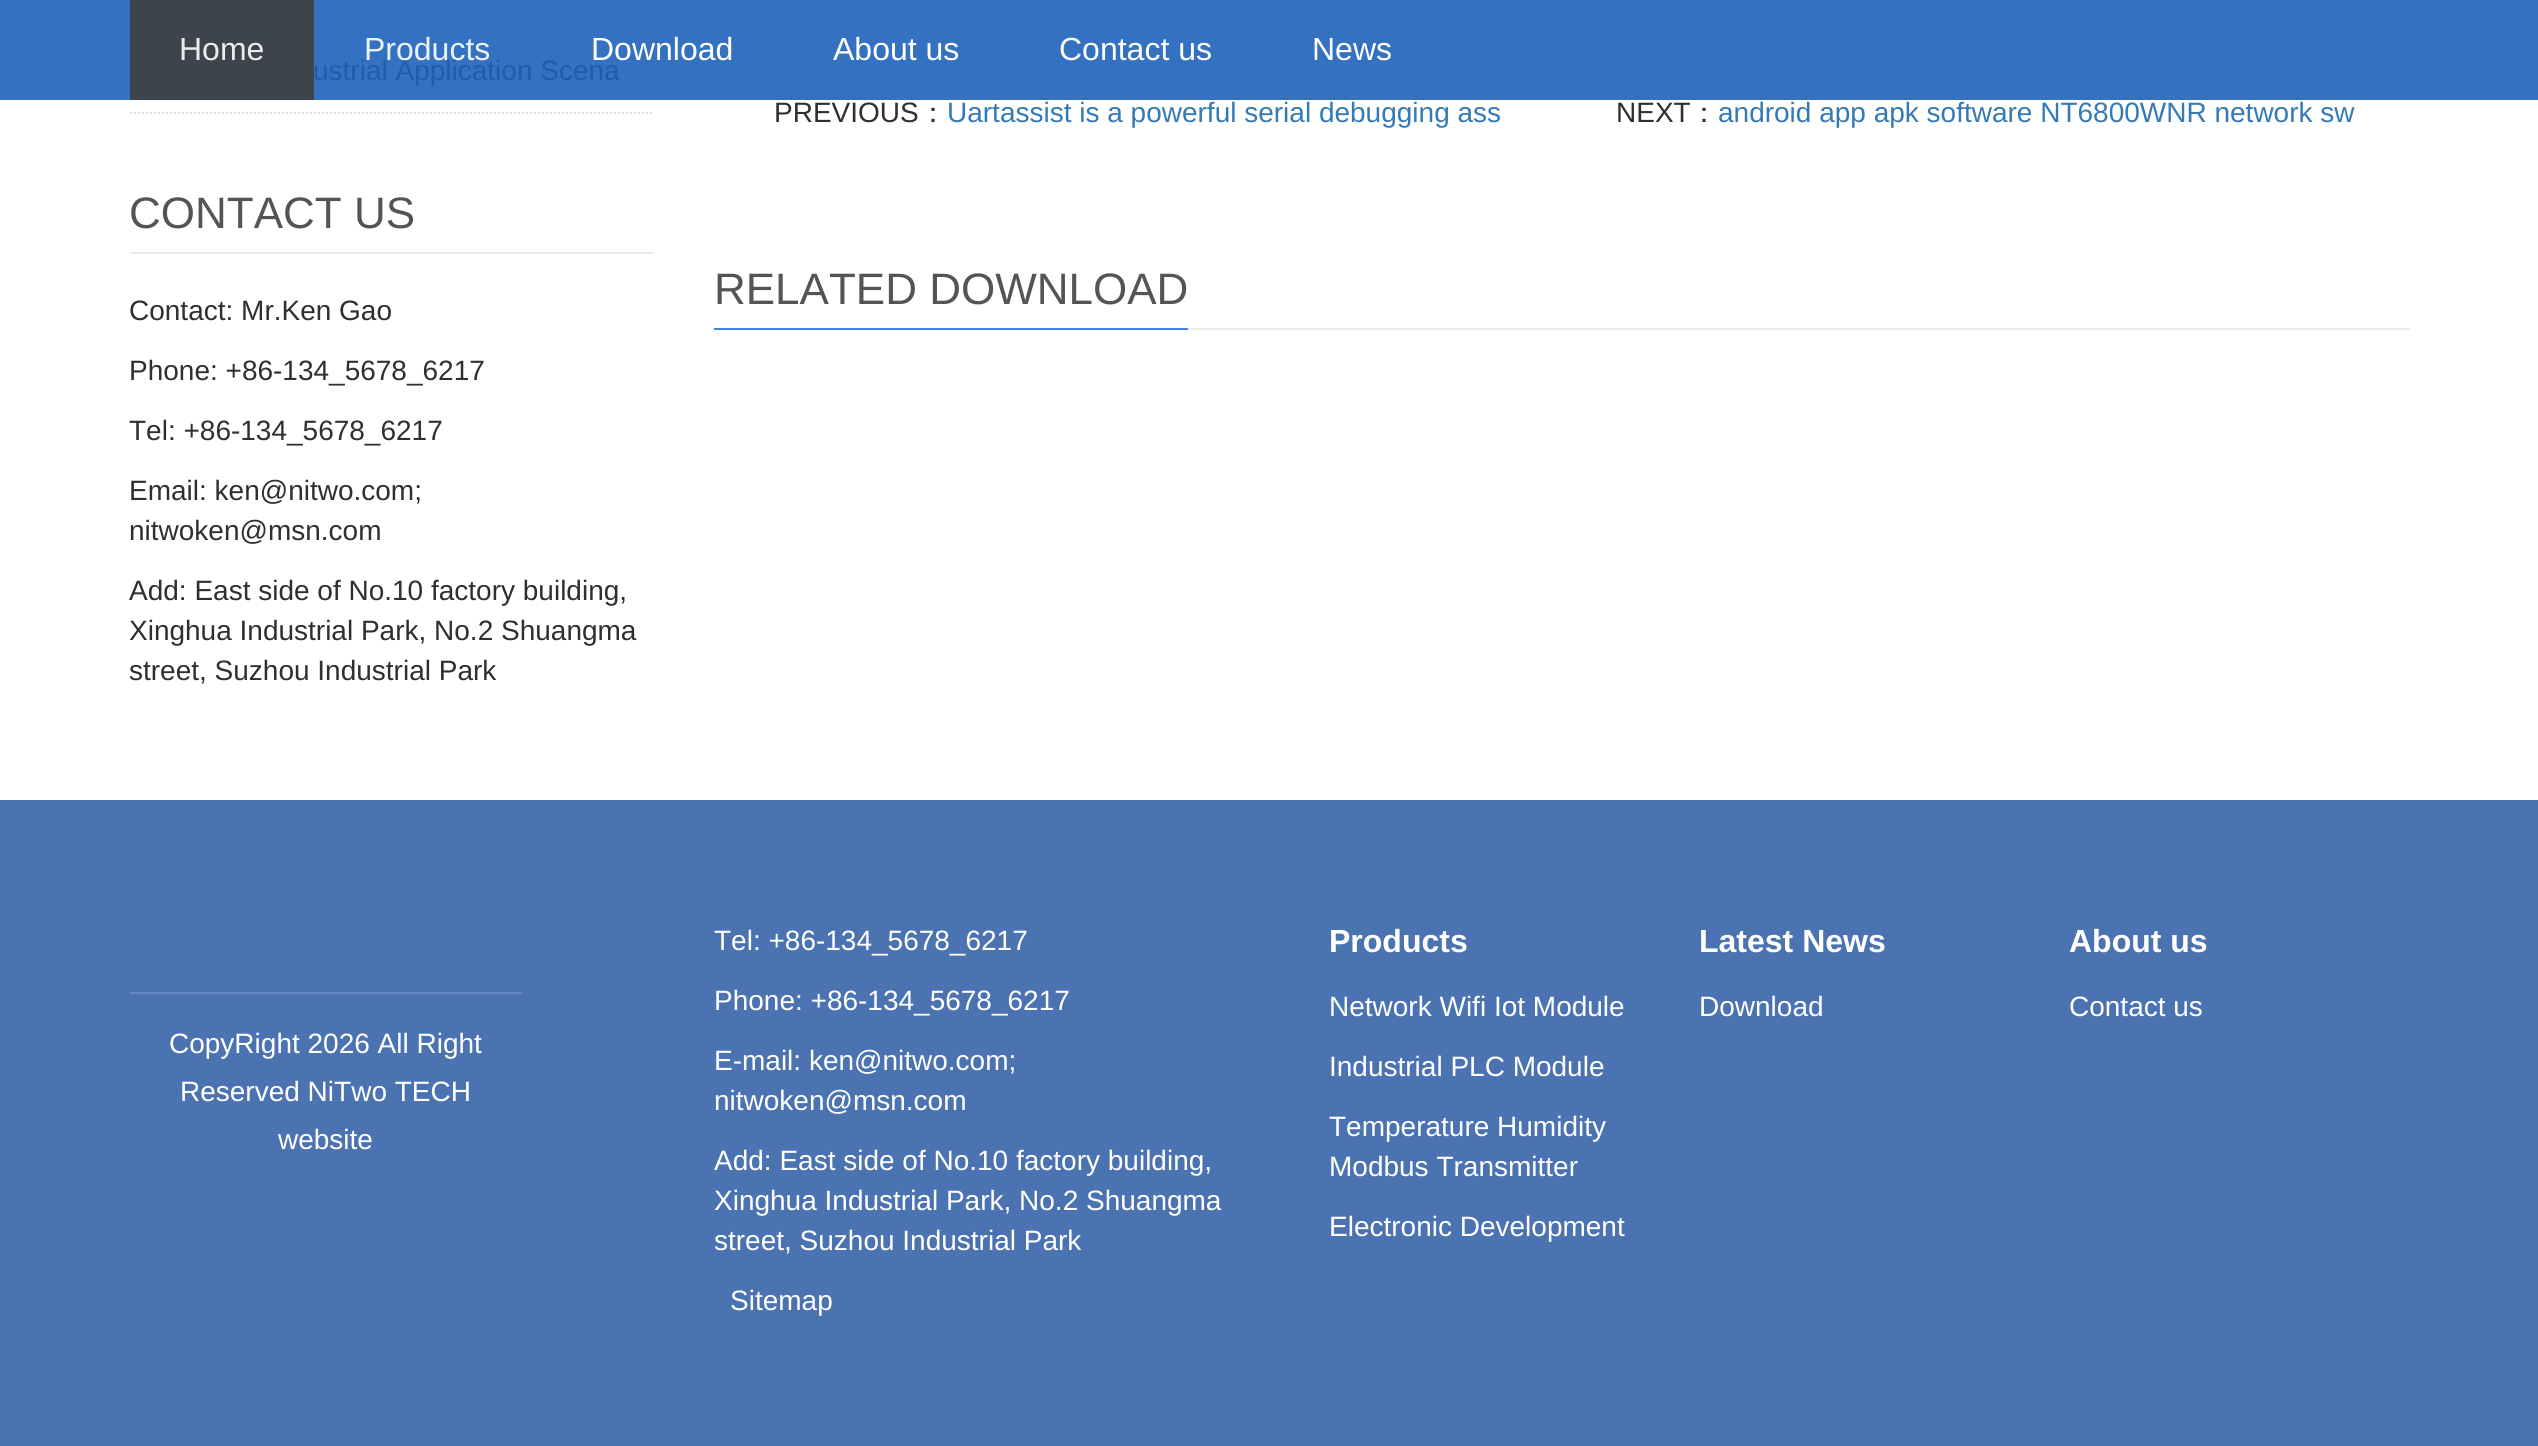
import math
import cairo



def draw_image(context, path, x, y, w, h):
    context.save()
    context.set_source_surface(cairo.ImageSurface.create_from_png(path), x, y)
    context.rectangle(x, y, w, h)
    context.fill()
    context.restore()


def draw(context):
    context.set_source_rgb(1, 1, 1)
    context.paint()
    context.set_source_rgb(52 / 255, 113 / 255, 193 / 255)
    context.rectangle(0, 0, 2538, 100)
    context.fill()
    context.new_path()
    context.move_to(130, 29)
    context.line_to(654, 29)
    context.set_source_rgb(49 / 255, 109 / 255, 190 / 255)
    context.set_dash([2, 2])
    context.stroke()
    draw_image(context, "images/1.png", 131, 63, 16, 12)
    context.set_source_rgba(64 / 255, 64 / 255, 64 / 255, 0.9)
    context.rectangle(130, 0, 184, 100)
    context.fill()
    context.new_path()
    context.move_to(130, 113)
    context.line_to(654, 113)
    context.set_source_rgb(221 / 255, 221 / 255, 221 / 255)
    context.stroke()
    context.set_source_rgb(235 / 255, 235 / 255, 235 / 255)
    context.rectangle(130, 252, 524, 2)
    context.fill()
    context.rectangle(1188, 328, 1222, 2)
    context.fill()
    context.set_source_rgb(69 / 255, 130 / 255, 226 / 255)
    context.rectangle(714, 328, 474, 2)
    context.fill()
    context.set_source_rgb(75 / 255, 115 / 255, 177 / 255)
    context.rectangle(0, 800, 2538, 646)
    context.fill()
    context.set_source_rgb(100 / 255, 136 / 255, 193 / 255)
    context.rectangle(130, 992, 392, 2)
    context.fill()
    context.select_font_face("Liberation Sans")
    context.set_font_size(32)
    context.set_source_rgb(236 / 255, 236 / 255, 237 / 255)
    context.move_to(179, 60)
    context.show_text("Home")
    context.set_source_rgb(235 / 255, 241 / 255, 249 / 255)
    context.move_to(364, 60)
    context.show_text("Products")
    context.set_source_rgb(1, 1, 1)
    context.move_to(591, 60)
    context.show_text("Download")
    context.move_to(833, 60)
    context.show_text("About us")
    context.move_to(1059, 60)
    context.show_text("Contact us")
    context.move_to(1312, 60)
    context.show_text("News")
    context.set_font_size(28)
    context.set_source_rgb(32 / 255, 92 / 255, 172 / 255)
    context.move_to(313, 80)
    context.show_text("ustrial Application Scena")
    context.set_font_size(44)
    context.set_source_rgb(84 / 255, 84 / 255, 84 / 255)
    context.move_to(129, 228)
    context.show_text("CONTACT US")
    context.set_font_size(28)
    context.set_source_rgb(47 / 255, 47 / 255, 47 / 255)
    context.move_to(129, 320)
    context.show_text("Contact: Mr.Ken Gao")
    context.move_to(129, 380)
    context.show_text("Phone: +86-134_5678_6217")
    context.move_to(129, 440)
    context.show_text("Tel: +86-134_5678_6217")
    context.move_to(129, 500)
    context.show_text("Email: ken@nitwo.com;")
    context.move_to(129, 540)
    context.show_text("nitwoken@msn.com")
    context.move_to(129, 600)
    context.show_text("Add: East side of No.10 factory building,")
    context.move_to(129, 640)
    context.show_text("Xinghua Industrial Park, No.2 Shuangma")
    context.move_to(129, 680)
    context.show_text("street, Suzhou Industrial Park")
    context.move_to(774, 122)
    context.show_text("PREVIOUS")
    context.select_font_face("WenQuanYi Zen Hei Medium")
    context.move_to(919, 122)
    context.show_text("：")
    context.select_font_face("Liberation Sans")
    context.set_source_rgb(51 / 255, 122 / 255, 183 / 255)
    context.move_to(947, 122)
    context.show_text("Uartassist is a powerful serial debugging ass")
    context.set_source_rgb(47 / 255, 47 / 255, 47 / 255)
    context.move_to(1616, 122)
    context.show_text("NEXT")
    context.select_font_face("WenQuanYi Zen Hei Medium")
    context.move_to(1690, 122)
    context.show_text("：")
    context.select_font_face("Liberation Sans")
    context.set_source_rgb(51 / 255, 122 / 255, 183 / 255)
    context.move_to(1718, 122)
    context.show_text("android app apk software NT6800WNR network sw")
    context.set_font_size(44)
    context.set_source_rgb(84 / 255, 84 / 255, 84 / 255)
    context.move_to(714, 304)
    context.show_text("RELATED DOWNLOAD")
    context.set_font_size(28)
    context.set_source_rgb(1, 1, 1)
    context.move_to(169, 1053)
    context.show_text("CopyRight 2026 All Right")
    context.move_to(180, 1101)
    context.show_text("Reserved NiTwo TECH")
    context.move_to(278, 1149)
    context.show_text("website")
    context.move_to(714, 950)
    context.show_text("Tel: +86-134_5678_6217")
    context.move_to(714, 1010)
    context.show_text("Phone: +86-134_5678_6217")
    context.move_to(714, 1070)
    context.show_text("E-mail: ken@nitwo.com;")
    context.move_to(714, 1110)
    context.show_text("nitwoken@msn.com")
    context.move_to(714, 1170)
    context.show_text("Add: East side of No.10 factory building,")
    context.move_to(714, 1210)
    context.show_text("Xinghua Industrial Park, No.2 Shuangma")
    context.move_to(714, 1250)
    context.show_text("street, Suzhou Industrial Park")
    context.move_to(730, 1310)
    context.show_text("Sitemap")
    context.select_font_face("Liberation Sans", cairo.FontSlant.NORMAL, cairo.FontWeight.BOLD)
    context.set_font_size(32)
    context.move_to(1329, 952)
    context.show_text("Products")
    context.select_font_face("Liberation Sans")
    context.set_font_size(28)
    context.move_to(1329, 1016)
    context.show_text("Network Wifi Iot Module")
    context.move_to(1329, 1076)
    context.show_text("Industrial PLC Module")
    context.move_to(1329, 1136)
    context.show_text("Temperature Humidity")
    context.move_to(1329, 1176)
    context.show_text("Modbus Transmitter")
    context.move_to(1329, 1236)
    context.show_text("Electronic Development")
    context.select_font_face("Liberation Sans", cairo.FontSlant.NORMAL, cairo.FontWeight.BOLD)
    context.set_font_size(32)
    context.move_to(1699, 952)
    context.show_text("Latest News")
    context.select_font_face("Liberation Sans")
    context.set_font_size(28)
    context.move_to(1699, 1016)
    context.show_text("Download")
    context.select_font_face("Liberation Sans", cairo.FontSlant.NORMAL, cairo.FontWeight.BOLD)
    context.set_font_size(32)
    context.move_to(2069, 952)
    context.show_text("About us")
    context.select_font_face("Liberation Sans")
    context.set_font_size(28)
    context.move_to(2069, 1016)
    context.show_text("Contact us")


surface = cairo.ImageSurface(cairo.Format.RGB24, 2538, 1446)
context = cairo.Context(surface)
options = cairo.FontOptions()
options.set_hint_metrics(cairo.HintMetrics.OFF)
options.set_hint_style(cairo.HintStyle.NONE)
context.set_font_options(options)
context.set_miter_limit(4)
draw(context)
surface.write_to_png("out.png")
